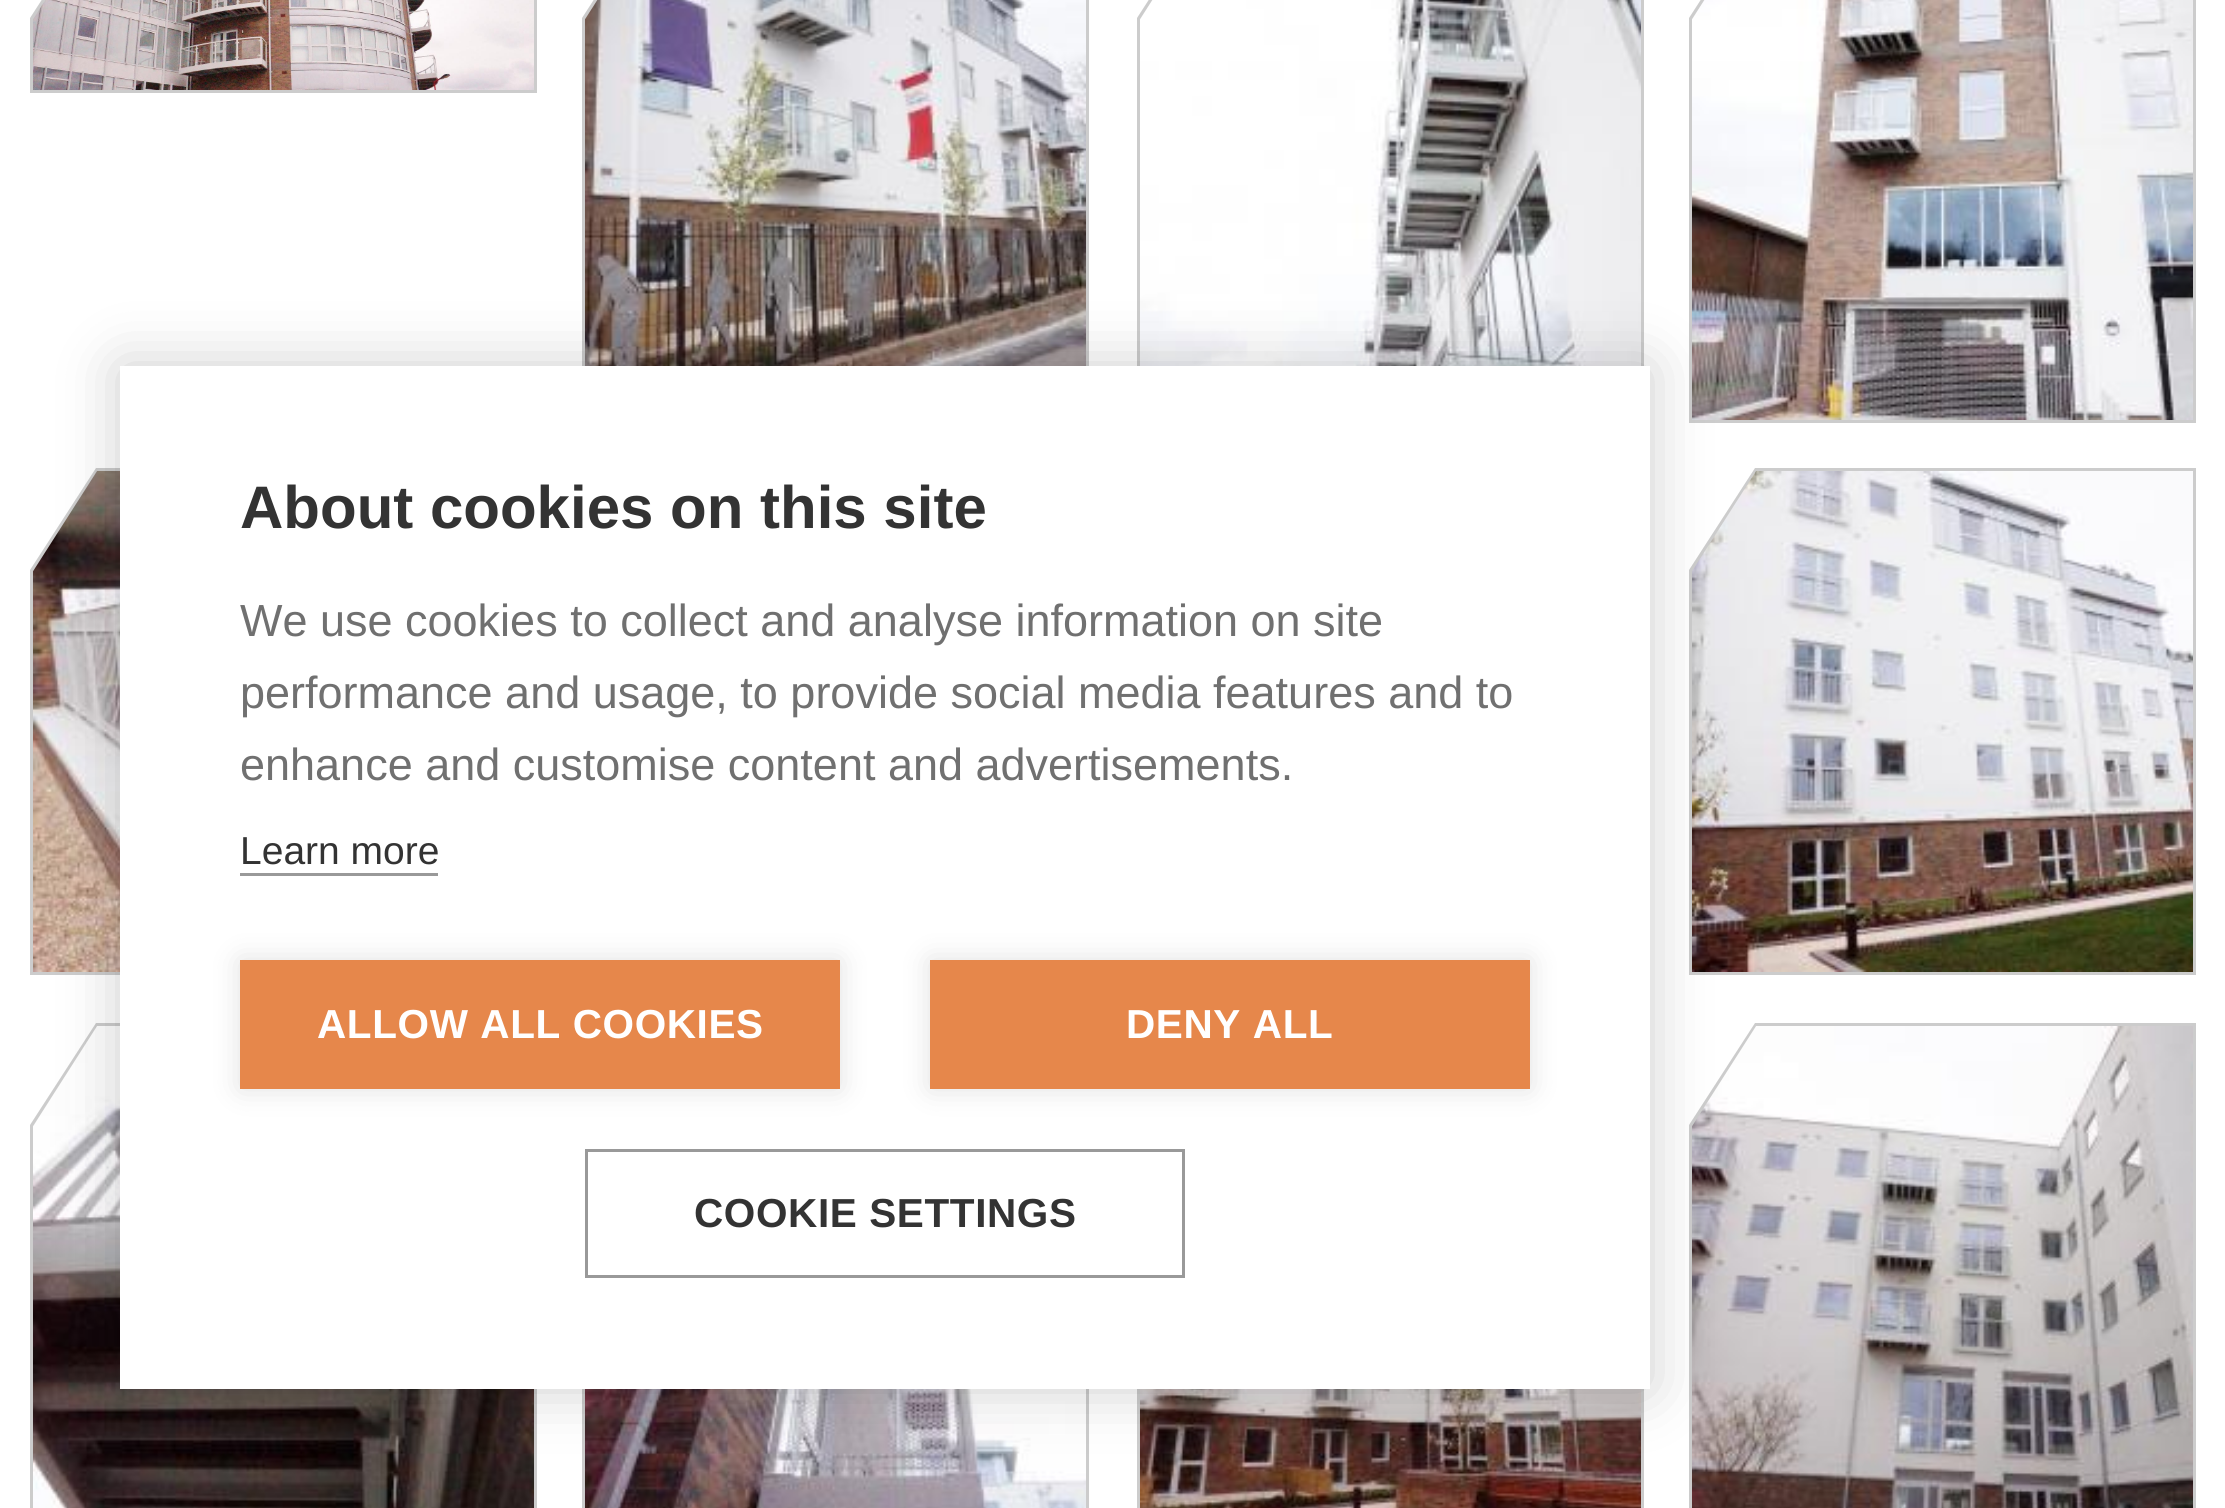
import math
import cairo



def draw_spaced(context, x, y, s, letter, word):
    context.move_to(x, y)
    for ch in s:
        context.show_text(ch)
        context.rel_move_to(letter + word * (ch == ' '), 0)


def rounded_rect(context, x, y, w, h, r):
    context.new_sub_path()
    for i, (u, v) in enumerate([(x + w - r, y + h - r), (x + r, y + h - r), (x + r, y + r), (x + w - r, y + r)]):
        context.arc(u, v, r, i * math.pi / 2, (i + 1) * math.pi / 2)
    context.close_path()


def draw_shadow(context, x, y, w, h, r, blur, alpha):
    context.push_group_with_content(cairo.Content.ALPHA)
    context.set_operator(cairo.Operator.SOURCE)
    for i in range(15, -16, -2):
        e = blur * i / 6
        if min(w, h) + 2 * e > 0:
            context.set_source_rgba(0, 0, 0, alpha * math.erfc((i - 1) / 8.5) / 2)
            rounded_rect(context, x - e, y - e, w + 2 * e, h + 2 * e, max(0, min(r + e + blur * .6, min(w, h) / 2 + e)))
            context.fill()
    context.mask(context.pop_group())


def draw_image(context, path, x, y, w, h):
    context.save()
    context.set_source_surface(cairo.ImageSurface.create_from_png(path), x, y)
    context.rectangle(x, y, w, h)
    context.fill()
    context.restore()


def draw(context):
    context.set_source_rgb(1, 1, 1)
    context.paint()
    context.rectangle(31.5, -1.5, 504, 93)
    context.set_source_rgb(204 / 255, 204 / 255, 204 / 255)
    context.set_line_width(3)
    context.stroke()
    draw_image(context, "images/1.png", 33, 0, 501, 90)
    context.new_path()
    context.move_to(30, -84)
    context.line_to(99, -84)
    context.line_to(30, 24)
    context.close_path()
    context.fill()
    context.set_source_rgb(1, 1, 1)
    context.new_path()
    context.move_to(30, -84)
    context.line_to(96, -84)
    context.line_to(30, 18)
    context.close_path()
    context.fill()
    context.rectangle(583.5, -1.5, 504, 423)
    context.set_source_rgb(204 / 255, 204 / 255, 204 / 255)
    context.stroke()
    draw_image(context, "images/2.png", 585, 0, 501, 366)
    context.new_path()
    context.move_to(582, -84)
    context.line_to(651, -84)
    context.line_to(582, 24)
    context.close_path()
    context.fill()
    context.set_source_rgb(1, 1, 1)
    context.new_path()
    context.move_to(582, -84)
    context.line_to(648, -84)
    context.line_to(582, 18)
    context.close_path()
    context.fill()
    context.rectangle(1138.5, -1.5, 504, 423)
    context.set_source_rgb(204 / 255, 204 / 255, 204 / 255)
    context.stroke()
    draw_image(context, "images/3.png", 1140, 0, 501, 366)
    context.new_path()
    context.move_to(1137, -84)
    context.line_to(1206, -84)
    context.line_to(1137, 24)
    context.close_path()
    context.fill()
    context.set_source_rgb(1, 1, 1)
    context.new_path()
    context.move_to(1137, -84)
    context.line_to(1203, -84)
    context.line_to(1137, 18)
    context.close_path()
    context.fill()
    context.rectangle(1690.5, -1.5, 504, 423)
    context.set_source_rgb(204 / 255, 204 / 255, 204 / 255)
    context.stroke()
    draw_image(context, "images/4.png", 1692, 0, 501, 420)
    context.new_path()
    context.move_to(1689, -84)
    context.line_to(1758, -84)
    context.line_to(1689, 24)
    context.close_path()
    context.fill()
    context.set_source_rgb(1, 1, 1)
    context.new_path()
    context.move_to(1689, -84)
    context.line_to(1755, -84)
    context.line_to(1689, 18)
    context.close_path()
    context.fill()
    context.rectangle(31.5, 469.5, 504, 504)
    context.set_source_rgb(204 / 255, 204 / 255, 204 / 255)
    context.stroke()
    draw_image(context, "images/5.png", 33, 471, 87, 501)
    context.new_path()
    context.move_to(30, 468)
    context.line_to(99, 468)
    context.line_to(30, 576)
    context.close_path()
    context.fill()
    context.set_source_rgb(1, 1, 1)
    context.new_path()
    context.move_to(30, 468)
    context.line_to(96, 468)
    context.line_to(30, 570)
    context.close_path()
    context.fill()
    context.rectangle(1690.5, 469.5, 504, 504)
    context.set_source_rgb(204 / 255, 204 / 255, 204 / 255)
    context.stroke()
    draw_image(context, "images/6.png", 1692, 471, 501, 501)
    context.new_path()
    context.move_to(1689, 468)
    context.line_to(1758, 468)
    context.line_to(1689, 576)
    context.close_path()
    context.fill()
    context.set_source_rgb(1, 1, 1)
    context.new_path()
    context.move_to(1689, 468)
    context.line_to(1755, 468)
    context.line_to(1689, 570)
    context.close_path()
    context.fill()
    context.rectangle(31.5, 1024.5, 504, 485)
    context.set_source_rgb(204 / 255, 204 / 255, 204 / 255)
    context.stroke()
    draw_image(context, "images/7.png", 33, 1026, 501, 482)
    context.new_path()
    context.move_to(30, 1023)
    context.line_to(99, 1023)
    context.line_to(30, 1131)
    context.close_path()
    context.fill()
    context.set_source_rgb(1, 1, 1)
    context.new_path()
    context.move_to(30, 1023)
    context.line_to(96, 1023)
    context.line_to(30, 1125)
    context.close_path()
    context.fill()
    context.rectangle(583.5, 1024.5, 504, 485)
    context.set_source_rgb(204 / 255, 204 / 255, 204 / 255)
    context.stroke()
    draw_image(context, "images/8.png", 585, 1389, 501, 119)
    context.rectangle(1138.5, 1024.5, 504, 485)
    context.stroke()
    draw_image(context, "images/9.png", 1140, 1389, 501, 119)
    context.rectangle(1690.5, 1024.5, 504, 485)
    context.stroke()
    draw_image(context, "images/10.png", 1692, 1026, 501, 482)
    context.new_path()
    context.move_to(1689, 1023)
    context.line_to(1758, 1023)
    context.line_to(1689, 1131)
    context.close_path()
    context.fill()
    context.set_source_rgb(1, 1, 1)
    context.new_path()
    context.move_to(1689, 1023)
    context.line_to(1755, 1023)
    context.line_to(1689, 1125)
    context.close_path()
    context.fill()
    context.set_source_rgb(0, 0, 0)
    draw_shadow(context, 120, 366, 1530, 1023, 0, 30, 0.2)
    context.set_source_rgb(1, 1, 1)
    context.rectangle(120, 366, 1530, 1023)
    context.fill()
    context.set_source_rgb(153 / 255, 153 / 255, 153 / 255)
    context.rectangle(240, 873, 198, 3)
    context.fill()
    context.set_source_rgb(0, 0, 0)
    draw_shadow(context, 240, 960, 600, 129, 0, 15, 0.12)
    context.set_source_rgb(230 / 255, 135 / 255, 75 / 255)
    context.rectangle(240, 960, 600, 129)
    context.fill()
    context.set_source_rgb(0, 0, 0)
    draw_shadow(context, 930, 960, 600, 129, 0, 15, 0.12)
    context.set_source_rgb(230 / 255, 135 / 255, 75 / 255)
    context.rectangle(930, 960, 600, 129)
    context.fill()
    context.rectangle(586.5, 1150.5, 597, 126)
    context.set_source_rgb(153 / 255, 153 / 255, 153 / 255)
    context.stroke()
    context.select_font_face("Liberation Sans", cairo.FontSlant.NORMAL, cairo.FontWeight.BOLD)
    context.set_font_size(60)
    context.set_source_rgb(51 / 255, 51 / 255, 51 / 255)
    context.move_to(240, 528)
    context.show_text("About cookies on this site")
    context.select_font_face("Liberation Sans")
    context.set_font_size(45)
    context.set_source_rgb(112 / 255, 112 / 255, 112 / 255)
    context.move_to(240, 636)
    context.show_text("We use cookies to collect and analyse information on site")
    context.move_to(240, 708)
    context.show_text("performance and usage, to provide social media features and to")
    context.move_to(240, 780)
    context.show_text("enhance and customise content and advertisements.")
    context.set_font_size(39)
    context.set_source_rgb(51 / 255, 51 / 255, 51 / 255)
    context.move_to(240, 864)
    context.show_text("Learn more")
    context.select_font_face("Liberation Sans", cairo.FontSlant.NORMAL, cairo.FontWeight.BOLD)
    context.set_font_size(40.5)
    context.set_source_rgb(1, 1, 1)
    draw_spaced(context, 317, 1038, "ALLOW ALL COOKIES", 0.6, 0)
    draw_spaced(context, 1126, 1038, "DENY ALL", 0.6, 0)
    context.set_source_rgb(51 / 255, 51 / 255, 51 / 255)
    draw_spaced(context, 694, 1227, "COOKIE SETTINGS", 0.6, 0)


surface = cairo.ImageSurface(cairo.Format.RGB24, 2225, 1508)
context = cairo.Context(surface)
options = cairo.FontOptions()
options.set_hint_metrics(cairo.HintMetrics.OFF)
options.set_hint_style(cairo.HintStyle.NONE)
context.set_font_options(options)
context.set_miter_limit(4)
draw(context)
surface.write_to_png("out.png")
